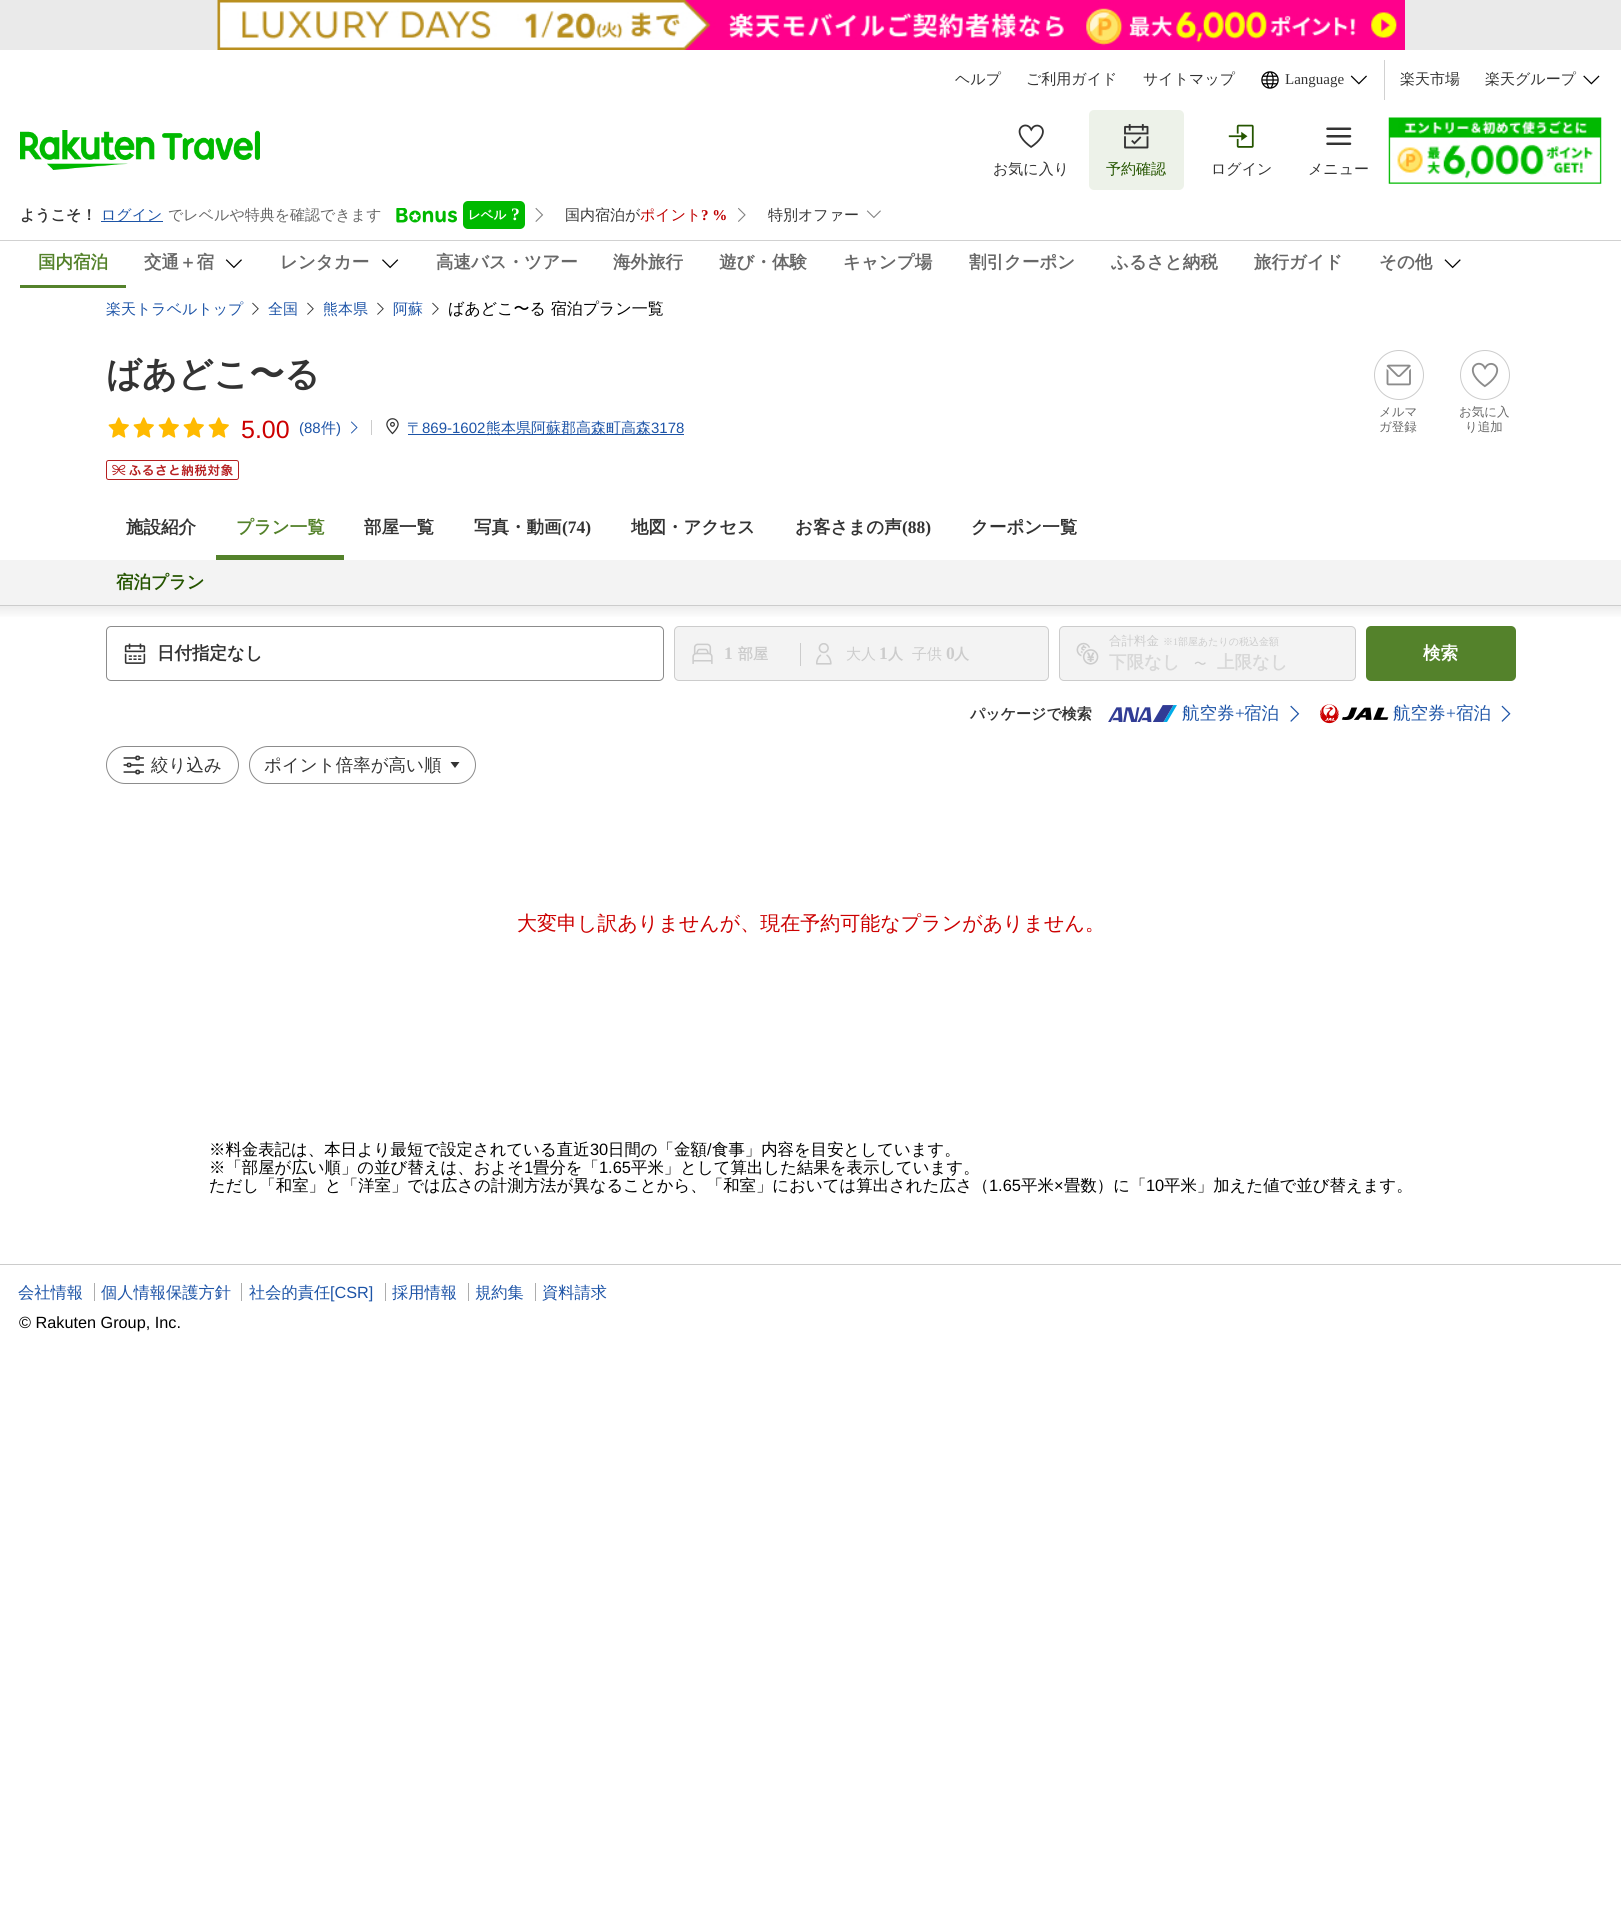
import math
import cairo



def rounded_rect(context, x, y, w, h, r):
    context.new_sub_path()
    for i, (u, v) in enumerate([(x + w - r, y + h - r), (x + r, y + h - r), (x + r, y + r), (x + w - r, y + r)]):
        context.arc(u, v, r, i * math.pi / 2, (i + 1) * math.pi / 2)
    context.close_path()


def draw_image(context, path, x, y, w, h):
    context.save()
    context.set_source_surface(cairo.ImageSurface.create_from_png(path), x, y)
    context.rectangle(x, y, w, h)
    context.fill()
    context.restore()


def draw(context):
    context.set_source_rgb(1, 1, 1)
    context.paint()
    context.set_source_rgb(234 / 255, 234 / 255, 234 / 255)
    context.rectangle(0, 0, 1621, 50)
    context.fill()
    draw_image(context, "images/1.png", 217, 0, 1188, 50)
    draw_image(context, "images/2.png", 1261, 71, 18, 18)
    draw_image(context, "images/3.png", 1350, 75, 17, 10)
    context.set_source_rgb(209 / 255, 209 / 255, 209 / 255)
    context.rectangle(1384, 60, 1, 40)
    context.fill()
    draw_image(context, "images/4.png", 1583, 75, 17, 10)
    draw_image(context, "images/5.png", 20, 130, 240, 40)
    draw_image(context, "images/6.png", 1018, 124, 26, 24)
    context.set_source_rgb(237 / 255, 242 / 255, 233 / 255)
    rounded_rect(context, 1089, 110, 95, 80, 5)
    context.fill()
    draw_image(context, "images/7.png", 1124, 124, 25, 25)
    draw_image(context, "images/8.png", 1228, 124, 26, 24)
    draw_image(context, "images/9.png", 1326, 127, 26, 18)
    draw_image(context, "images/10.png", 1388, 117, 214, 67)
    context.set_source_rgb(29 / 255, 84 / 255, 167 / 255)
    context.rectangle(101, 221, 62, 1)
    context.fill()
    draw_image(context, "images/11.png", 396, 208, 61, 15)
    context.set_source_rgb(0, 185 / 255, 0)
    rounded_rect(context, 463, 201, 62, 28, 5)
    context.fill()
    draw_image(context, "images/12.png", 535, 207, 9, 15)
    draw_image(context, "images/13.png", 738, 207, 8, 15)
    draw_image(context, "images/14.png", 866, 210, 15, 9)
    context.set_source_rgb(209 / 255, 209 / 255, 209 / 255)
    context.rectangle(0, 240, 1621, 1)
    context.fill()
    context.set_source_rgb(84 / 255, 130 / 255, 43 / 255)
    context.rectangle(20, 285, 106, 3)
    context.fill()
    draw_image(context, "images/15.png", 225, 259, 17, 10)
    draw_image(context, "images/16.png", 382, 259, 17, 10)
    draw_image(context, "images/17.png", 1444, 259, 17, 10)
    draw_image(context, "images/18.png", 252, 302, 7, 13)
    draw_image(context, "images/18.png", 307, 302, 7, 13)
    draw_image(context, "images/18.png", 377, 302, 7, 13)
    draw_image(context, "images/18.png", 432, 302, 7, 13)
    draw_image(context, "images/19.png", 108, 417, 21, 21)
    draw_image(context, "images/19.png", 133, 417, 21, 21)
    draw_image(context, "images/19.png", 158, 417, 21, 21)
    draw_image(context, "images/19.png", 183, 417, 21, 21)
    draw_image(context, "images/19.png", 208, 417, 21, 21)
    context.set_source_rgb(204 / 255, 204 / 255, 204 / 255)
    context.rectangle(371, 420, 1, 15)
    context.fill()
    draw_image(context, "images/20.png", 351, 421, 7, 13)
    draw_image(context, "images/21.png", 386, 418, 13, 17)
    context.set_source_rgb(29 / 255, 84 / 255, 167 / 255)
    context.rectangle(408, 434, 276, 1)
    context.fill()
    draw_image(context, "images/22.png", 106, 460, 133, 20)
    draw_image(context, "images/23.png", 1374, 350, 50, 50)
    draw_image(context, "images/24.png", 1460, 350, 50, 50)
    context.set_source_rgb(84 / 255, 130 / 255, 43 / 255)
    context.rectangle(216, 555, 128, 5)
    context.fill()
    gradient = cairo.LinearGradient(811, 619, 811, 606)
    gradient.add_color_stop_rgba(0, 1, 1, 1, 1)
    gradient.add_color_stop_rgba(1, 237 / 255, 237 / 255, 237 / 255, 1)
    context.set_source(gradient)
    context.rectangle(0, 606, 1621, 11)
    context.fill()
    context.set_source_rgb(243 / 255, 243 / 255, 243 / 255)
    context.rectangle(0, 560, 1621, 45)
    context.fill()
    context.set_source_rgb(204 / 255, 204 / 255, 204 / 255)
    context.rectangle(0, 605, 1621, 1)
    context.fill()
    rounded_rect(context, 106.5, 626.5, 557, 54, 4.5)
    context.set_source_rgb(140 / 255, 140 / 255, 140 / 255)
    context.set_line_width(1)
    context.stroke()
    draw_image(context, "images/25.png", 124, 643, 22, 21)
    context.set_source_rgb(243 / 255, 243 / 255, 243 / 255)
    rounded_rect(context, 674.5, 626.5, 374, 54, 4.5)
    context.fill_preserve()
    context.set_source_rgb(204 / 255, 204 / 255, 204 / 255)
    context.stroke()
    context.rectangle(800, 643, 1, 23)
    context.fill()
    draw_image(context, "images/26.png", 692, 643, 21, 21)
    draw_image(context, "images/27.png", 816, 643, 16, 22)
    context.set_source_rgb(243 / 255, 243 / 255, 243 / 255)
    rounded_rect(context, 1059.5, 626.5, 296, 54, 4.5)
    context.fill_preserve()
    context.set_source_rgb(204 / 255, 204 / 255, 204 / 255)
    context.stroke()
    draw_image(context, "images/28.png", 1076, 642, 23, 23)
    context.set_source_rgb(84 / 255, 130 / 255, 43 / 255)
    rounded_rect(context, 1366, 626, 150, 55, 5)
    context.fill()
    draw_image(context, "images/29.png", 1108, 705, 69, 17)
    draw_image(context, "images/30.png", 1290, 705, 10, 17)
    draw_image(context, "images/31.png", 1320, 704, 69, 20)
    draw_image(context, "images/32.png", 1501, 705, 10, 17)
    rounded_rect(context, 106.5, 746.5, 132, 37, 18.5)
    context.set_source_rgb(140 / 255, 140 / 255, 140 / 255)
    context.stroke()
    draw_image(context, "images/33.png", 123, 755, 21, 20)
    rounded_rect(context, 249.5, 746.5, 226, 37, 18.5)
    context.stroke()
    context.set_source_rgb(51 / 255, 51 / 255, 51 / 255)
    context.set_fill_rule(cairo.FillRule.EVEN_ODD)
    context.new_path()
    context.move_to(455, 768)
    context.line_to(450.5, 762)
    context.line_to(459.5, 762)
    context.close_path()
    context.fill()
    context.set_source_rgb(204 / 255, 204 / 255, 204 / 255)
    context.rectangle(0, 1264, 1621, 1)
    context.fill()
    context.set_source_rgb(173 / 255, 173 / 255, 173 / 255)
    context.rectangle(94, 1283, 1, 18)
    context.fill()
    context.rectangle(241, 1283, 1, 18)
    context.fill()
    context.rectangle(385, 1283, 1, 18)
    context.fill()
    context.rectangle(468, 1283, 1, 18)
    context.fill()
    context.rectangle(535, 1283, 1, 18)
    context.fill()
    context.select_font_face("WenQuanYi Zen Hei Medium")
    context.set_font_size(15)
    context.set_source_rgb(51 / 255, 51 / 255, 51 / 255)
    context.move_to(955, 84)
    context.show_text("ヘルプ")
    context.move_to(1026, 84)
    context.show_text("ご利用ガイド")
    context.move_to(1143, 84)
    context.show_text("サイトマップ")
    context.select_font_face("Liberation Serif")
    context.move_to(1285, 84)
    context.show_text("Language")
    context.select_font_face("WenQuanYi Zen Hei Medium")
    context.move_to(1400, 84)
    context.show_text("楽天市場")
    context.move_to(1485, 84)
    context.show_text("楽天グループ")
    context.move_to(993, 174)
    context.show_text("お気に入り")
    context.set_source_rgb(37 / 255, 85 / 255, 0)
    context.move_to(1106, 174)
    context.show_text("予約確認")
    context.set_source_rgb(51 / 255, 51 / 255, 51 / 255)
    context.move_to(1211, 174)
    context.show_text("ログイン")
    context.move_to(1308, 174)
    context.show_text("メニュー")
    context.select_font_face("WenQuanYi Zen Hei", cairo.FontSlant.NORMAL, cairo.FontWeight.BOLD)
    context.move_to(20, 220)
    context.show_text("ようこそ！")
    context.select_font_face("WenQuanYi Zen Hei Medium")
    context.set_source_rgb(29 / 255, 84 / 255, 167 / 255)
    context.move_to(101, 220)
    context.show_text("ログイン")
    context.set_source_rgb(104 / 255, 104 / 255, 104 / 255)
    context.move_to(168, 220)
    context.show_text("でレベルや特典を確認できます")
    context.select_font_face("WenQuanYi Zen Hei", cairo.FontSlant.NORMAL, cairo.FontWeight.BOLD)
    context.set_font_size(12.5)
    context.set_source_rgb(1, 1, 1)
    context.move_to(468, 219)
    context.show_text("レベル")
    context.select_font_face("Liberation Serif", cairo.FontSlant.NORMAL, cairo.FontWeight.BOLD)
    context.set_font_size(17.5)
    context.move_to(511, 220)
    context.show_text("?")
    context.select_font_face("WenQuanYi Zen Hei Medium")
    context.set_font_size(15)
    context.set_source_rgb(51 / 255, 51 / 255, 51 / 255)
    context.move_to(565, 220)
    context.show_text("国内宿泊が")
    context.set_source_rgb(191 / 255, 0, 0)
    context.move_to(640, 220)
    context.show_text("ポイント")
    context.select_font_face("Liberation Serif", cairo.FontSlant.NORMAL, cairo.FontWeight.BOLD)
    context.move_to(701, 220)
    context.show_text("? %")
    context.select_font_face("WenQuanYi Zen Hei Medium")
    context.set_source_rgb(51 / 255, 51 / 255, 51 / 255)
    context.move_to(768, 220)
    context.show_text("特別オファー")
    context.select_font_face("WenQuanYi Zen Hei", cairo.FontSlant.NORMAL, cairo.FontWeight.BOLD)
    context.set_font_size(17.5)
    context.set_source_rgb(84 / 255, 130 / 255, 43 / 255)
    context.move_to(38, 268)
    context.show_text("国内宿泊")
    context.set_source_rgb(104 / 255, 104 / 255, 104 / 255)
    context.move_to(144, 268)
    context.show_text("交通＋宿")
    context.move_to(280, 268)
    context.show_text("レンタカー")
    context.move_to(436, 268)
    context.show_text("高速バス・ツアー")
    context.move_to(613, 268)
    context.show_text("海外旅行")
    context.move_to(719, 268)
    context.show_text("遊び・体験")
    context.move_to(843, 268)
    context.show_text("キャンプ場")
    context.move_to(969, 268)
    context.show_text("割引クーポン")
    context.move_to(1111, 268)
    context.show_text("ふるさと納税")
    context.move_to(1254, 268)
    context.show_text("旅行ガイド")
    context.move_to(1379, 268)
    context.show_text("その他")
    context.select_font_face("WenQuanYi Zen Hei Medium")
    context.set_font_size(15)
    context.set_source_rgb(29 / 255, 84 / 255, 167 / 255)
    context.move_to(106, 314)
    context.show_text("楽天トラベルトップ")
    context.move_to(268, 314)
    context.show_text("全国")
    context.move_to(323, 314)
    context.show_text("熊本県")
    context.move_to(393, 314)
    context.show_text("阿蘇")
    context.set_font_size(16)
    context.set_source_rgb(0, 0, 0)
    context.move_to(448, 314)
    context.show_text("ばあどこ〜る 宿泊プラン一覧")
    context.select_font_face("WenQuanYi Zen Hei", cairo.FontSlant.NORMAL, cairo.FontWeight.BOLD)
    context.set_font_size(35)
    context.set_source_rgb(51 / 255, 51 / 255, 51 / 255)
    context.move_to(106, 386)
    context.show_text("ばあどこ〜る")
    context.select_font_face("Liberation Sans")
    context.set_font_size(25)
    context.set_source_rgb(204 / 255, 0, 0)
    context.move_to(241, 438)
    context.show_text("5.00")
    context.set_font_size(15)
    context.set_source_rgb(29 / 255, 84 / 255, 167 / 255)
    context.move_to(299, 433)
    context.show_text("(88")
    context.select_font_face("WenQuanYi Zen Hei Medium")
    context.move_to(321, 433)
    context.show_text("件")
    context.select_font_face("Liberation Sans")
    context.move_to(336, 433)
    context.show_text(")")
    context.select_font_face("WenQuanYi Zen Hei Medium")
    context.move_to(407, 433)
    context.show_text("〒")
    context.select_font_face("Liberation Sans")
    context.move_to(422, 433)
    context.show_text("869-1602")
    context.select_font_face("WenQuanYi Zen Hei Medium")
    context.move_to(486, 433)
    context.show_text("熊本県阿蘇郡高森町高森")
    context.select_font_face("Liberation Sans")
    context.move_to(651, 433)
    context.show_text("3178")
    context.select_font_face("WenQuanYi Zen Hei Medium")
    context.set_font_size(12.5)
    context.set_source_rgb(104 / 255, 104 / 255, 104 / 255)
    context.move_to(1379, 416)
    context.show_text("メルマ")
    context.move_to(1379, 431)
    context.show_text("ガ登録")
    context.move_to(1459, 416)
    context.show_text("お気に入")
    context.move_to(1465, 431)
    context.show_text("り追加")
    context.select_font_face("WenQuanYi Zen Hei", cairo.FontSlant.NORMAL, cairo.FontWeight.BOLD)
    context.set_font_size(17.5)
    context.set_source_rgb(51 / 255, 51 / 255, 51 / 255)
    context.move_to(126, 533)
    context.show_text("施設紹介")
    context.set_source_rgb(84 / 255, 130 / 255, 43 / 255)
    context.move_to(236, 533)
    context.show_text("プラン一覧")
    context.set_source_rgb(51 / 255, 51 / 255, 51 / 255)
    context.move_to(364, 533)
    context.show_text("部屋一覧")
    context.move_to(474, 533)
    context.show_text("写真・動画")
    context.select_font_face("Liberation Serif", cairo.FontSlant.NORMAL, cairo.FontWeight.BOLD)
    context.move_to(562, 533)
    context.show_text("(74)")
    context.select_font_face("WenQuanYi Zen Hei", cairo.FontSlant.NORMAL, cairo.FontWeight.BOLD)
    context.move_to(631, 533)
    context.show_text("地図・アクセス")
    context.move_to(795, 533)
    context.show_text("お客さまの声")
    context.select_font_face("Liberation Serif", cairo.FontSlant.NORMAL, cairo.FontWeight.BOLD)
    context.move_to(902, 533)
    context.show_text("(88)")
    context.select_font_face("WenQuanYi Zen Hei", cairo.FontSlant.NORMAL, cairo.FontWeight.BOLD)
    context.move_to(971, 533)
    context.show_text("クーポン一覧")
    context.set_source_rgb(37 / 255, 85 / 255, 0)
    context.move_to(116, 588)
    context.show_text("宿泊プラン")
    context.set_source_rgb(51 / 255, 51 / 255, 51 / 255)
    context.move_to(157, 659)
    context.show_text("日付指定なし")
    context.select_font_face("Liberation Serif", cairo.FontSlant.NORMAL, cairo.FontWeight.BOLD)
    context.set_source_rgb(204 / 255, 204 / 255, 204 / 255)
    context.move_to(724, 659)
    context.show_text("1")
    context.select_font_face("WenQuanYi Zen Hei", cairo.FontSlant.NORMAL, cairo.FontWeight.BOLD)
    context.set_font_size(15)
    context.move_to(738, 659)
    context.show_text("部屋")
    context.select_font_face("WenQuanYi Zen Hei Medium")
    context.move_to(846, 659)
    context.show_text("大人")
    context.select_font_face("Liberation Serif", cairo.FontSlant.NORMAL, cairo.FontWeight.BOLD)
    context.set_font_size(17.5)
    context.move_to(879, 659)
    context.show_text("1")
    context.select_font_face("WenQuanYi Zen Hei", cairo.FontSlant.NORMAL, cairo.FontWeight.BOLD)
    context.set_font_size(15)
    context.move_to(888, 659)
    context.show_text("人")
    context.select_font_face("WenQuanYi Zen Hei Medium")
    context.move_to(912, 659)
    context.show_text("子供")
    context.select_font_face("Liberation Serif", cairo.FontSlant.NORMAL, cairo.FontWeight.BOLD)
    context.set_font_size(17.5)
    context.move_to(946, 659)
    context.show_text("0")
    context.select_font_face("WenQuanYi Zen Hei", cairo.FontSlant.NORMAL, cairo.FontWeight.BOLD)
    context.set_font_size(15)
    context.move_to(954, 659)
    context.show_text("人")
    context.select_font_face("WenQuanYi Zen Hei Medium")
    context.set_font_size(12.5)
    context.move_to(1109, 645)
    context.show_text("合計料金")
    context.set_font_size(10)
    context.move_to(1163, 645)
    context.show_text("※")
    context.select_font_face("Liberation Serif")
    context.move_to(1173, 645)
    context.show_text("1")
    context.select_font_face("WenQuanYi Zen Hei Medium")
    context.move_to(1178, 645)
    context.show_text("部屋あたりの税込金額")
    context.select_font_face("WenQuanYi Zen Hei", cairo.FontSlant.NORMAL, cairo.FontWeight.BOLD)
    context.set_font_size(17.5)
    context.set_source_rgb(216 / 255, 216 / 255, 216 / 255)
    context.move_to(1109, 668)
    context.show_text("下限なし")
    context.select_font_face("WenQuanYi Zen Hei Medium")
    context.set_font_size(12.5)
    context.set_source_rgb(204 / 255, 204 / 255, 204 / 255)
    context.move_to(1194, 668)
    context.show_text("〜")
    context.select_font_face("WenQuanYi Zen Hei", cairo.FontSlant.NORMAL, cairo.FontWeight.BOLD)
    context.set_font_size(17.5)
    context.set_source_rgb(216 / 255, 216 / 255, 216 / 255)
    context.move_to(1217, 668)
    context.show_text("上限なし")
    context.set_source_rgb(1, 1, 1)
    context.move_to(1423, 659)
    context.show_text("検索")
    context.set_font_size(15)
    context.set_source_rgb(51 / 255, 51 / 255, 51 / 255)
    context.move_to(970, 719)
    context.show_text("パッケージで検索")
    context.select_font_face("WenQuanYi Zen Hei Medium")
    context.set_font_size(17.5)
    context.set_source_rgb(29 / 255, 84 / 255, 167 / 255)
    context.move_to(1182, 719)
    context.show_text("航空券")
    context.select_font_face("Liberation Serif")
    context.move_to(1235, 719)
    context.show_text("+")
    context.select_font_face("WenQuanYi Zen Hei Medium")
    context.move_to(1244, 719)
    context.show_text("宿泊")
    context.move_to(1393, 719)
    context.show_text("航空券")
    context.select_font_face("Liberation Serif")
    context.move_to(1446, 719)
    context.show_text("+")
    context.select_font_face("WenQuanYi Zen Hei Medium")
    context.move_to(1456, 719)
    context.show_text("宿泊")
    context.set_source_rgb(51 / 255, 51 / 255, 51 / 255)
    context.move_to(151, 771)
    context.show_text("絞り込み")
    context.move_to(264, 771)
    context.show_text("ポイント倍率が高い順")
    context.set_font_size(20)
    context.set_source_rgb(204 / 255, 0, 0)
    context.move_to(517, 930)
    context.show_text("大変申し訳ありませんが、現在予約可能なプランがありません。")
    context.set_font_size(16.4)
    context.set_source_rgb(0, 0, 0)
    context.move_to(209, 1155)
    context.show_text("※料金表記は、本日より最短で設定されている直近")
    context.select_font_face("Liberation Sans")
    context.move_to(590, 1155)
    context.show_text("30")
    context.select_font_face("WenQuanYi Zen Hei Medium")
    context.move_to(608, 1155)
    context.show_text("日間の「金額")
    context.select_font_face("Liberation Sans")
    context.move_to(707, 1155)
    context.show_text("/")
    context.select_font_face("WenQuanYi Zen Hei Medium")
    context.move_to(712, 1155)
    context.show_text("食事」内容を目安としています。")
    context.move_to(209, 1173)
    context.show_text("※「部屋が広い順」の並び替えは、およそ")
    context.select_font_face("Liberation Sans")
    context.move_to(524, 1173)
    context.show_text("1")
    context.select_font_face("WenQuanYi Zen Hei Medium")
    context.move_to(533, 1173)
    context.show_text("畳分を「")
    context.select_font_face("Liberation Sans")
    context.move_to(599, 1173)
    context.show_text("1.65")
    context.select_font_face("WenQuanYi Zen Hei Medium")
    context.move_to(631, 1173)
    context.show_text("平米」として算出した結果を表示しています。")
    context.move_to(209, 1191)
    context.show_text("ただし「和室」と「洋室」では広さの計測方法が異なることから、「和室」においては算出された広さ（")
    context.select_font_face("Liberation Sans")
    context.move_to(989, 1191)
    context.show_text("1.65")
    context.select_font_face("WenQuanYi Zen Hei Medium")
    context.move_to(1021, 1191)
    context.show_text("平米")
    context.select_font_face("Liberation Sans")
    context.move_to(1054, 1191)
    context.show_text("×")
    context.select_font_face("WenQuanYi Zen Hei Medium")
    context.move_to(1064, 1191)
    context.show_text("畳数）に「")
    context.select_font_face("Liberation Sans")
    context.move_to(1146, 1191)
    context.show_text("10")
    context.select_font_face("WenQuanYi Zen Hei Medium")
    context.move_to(1164, 1191)
    context.show_text("平米」加えた値で並び替えます。")
    context.set_font_size(16.25)
    context.set_source_rgb(29 / 255, 84 / 255, 167 / 255)
    context.move_to(18, 1298)
    context.show_text("会社情報")
    context.move_to(101, 1298)
    context.show_text("個人情報保護方針")
    context.move_to(249, 1298)
    context.show_text("社会的責任")
    context.select_font_face("Liberation Sans")
    context.move_to(330, 1298)
    context.show_text("[CSR]")
    context.select_font_face("WenQuanYi Zen Hei Medium")
    context.move_to(392, 1298)
    context.show_text("採用情報")
    context.move_to(475, 1298)
    context.show_text("規約集")
    context.move_to(542, 1298)
    context.show_text("資料請求")
    context.select_font_face("Liberation Sans")
    context.set_source_rgb(0, 0, 0)
    context.move_to(19, 1328)
    context.show_text("© Rakuten Group, Inc.")


surface = cairo.ImageSurface(cairo.Format.RGB24, 1621, 1926)
context = cairo.Context(surface)
options = cairo.FontOptions()
options.set_hint_metrics(cairo.HintMetrics.OFF)
options.set_hint_style(cairo.HintStyle.NONE)
context.set_font_options(options)
context.set_miter_limit(4)
draw(context)
surface.write_to_png("out.png")
